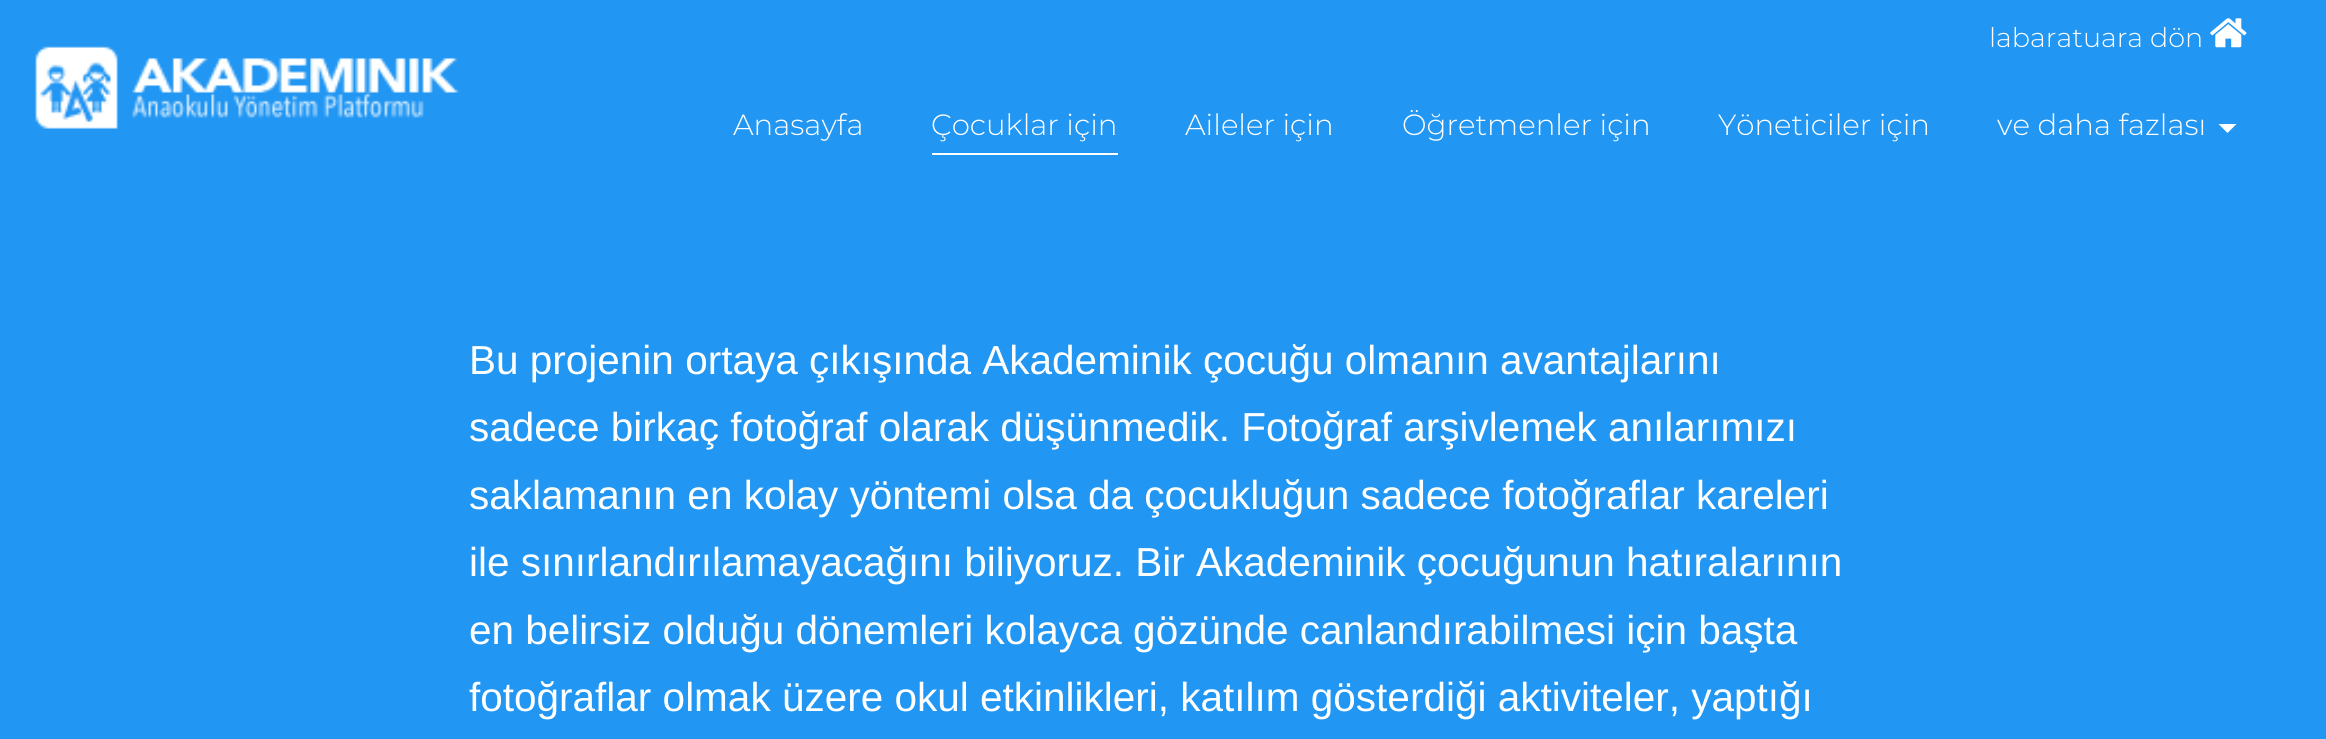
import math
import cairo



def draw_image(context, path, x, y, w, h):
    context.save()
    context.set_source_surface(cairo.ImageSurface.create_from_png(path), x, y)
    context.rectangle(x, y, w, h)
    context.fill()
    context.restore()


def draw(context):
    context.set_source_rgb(33 / 255, 150 / 255, 243 / 255)
    context.paint()
    draw_image(context, "images/1.png", 35, 46, 425, 83)
    draw_image(context, "images/2.png", 2210, 18, 37, 30)
    context.set_source_rgb(1, 1, 1)
    context.rectangle(932, 153, 186, 2)
    context.fill()
    context.new_path()
    context.move_to(2218.5, 124)
    context.line_to(2236.5, 124)
    context.line_to(2227.5, 133)
    context.close_path()
    context.fill()
    context.select_font_face("Montserrat Light")
    context.set_font_size(27)
    context.move_to(1989, 47)
    context.show_text("labaratuara dön")
    context.set_font_size(29.25)
    context.move_to(733, 135)
    context.show_text("Anasayfa")
    context.move_to(931, 135)
    context.show_text("Çocuklar için")
    context.move_to(1185, 135)
    context.show_text("Aileler için")
    context.move_to(1402, 135)
    context.show_text("Öğretmenler için")
    context.move_to(1718, 135)
    context.show_text("Yöneticiler için")
    context.move_to(1997, 135)
    context.show_text("ve daha fazlası")
    context.select_font_face("Liberation Sans")
    context.set_font_size(40.5)
    context.move_to(469, 374)
    context.show_text("Bu projenin ortaya çıkışında Akademinik çocuğu olmanın avantajlarını")
    context.move_to(469, 441)
    context.show_text("sadece birkaç fotoğraf olarak düşünmedik. Fotoğraf arşivlemek anılarımızı")
    context.move_to(469, 509)
    context.show_text("saklamanın en kolay yöntemi olsa da çocukluğun sadece fotoğraflar kareleri")
    context.move_to(469, 576)
    context.show_text("ile sınırlandırılamayacağını biliyoruz. Bir Akademinik çocuğunun hatıralarının")
    context.move_to(469, 644)
    context.show_text("en belirsiz olduğu dönemleri kolayca gözünde canlandırabilmesi için başta")
    context.move_to(469, 711)
    context.show_text("fotoğraflar olmak üzere okul etkinlikleri, katılım gösterdiği aktiviteler, yaptığı")


surface = cairo.ImageSurface(cairo.Format.RGB24, 2326, 739)
context = cairo.Context(surface)
options = cairo.FontOptions()
options.set_hint_metrics(cairo.HintMetrics.OFF)
options.set_hint_style(cairo.HintStyle.NONE)
context.set_font_options(options)
context.set_miter_limit(4)
draw(context)
surface.write_to_png("out.png")
